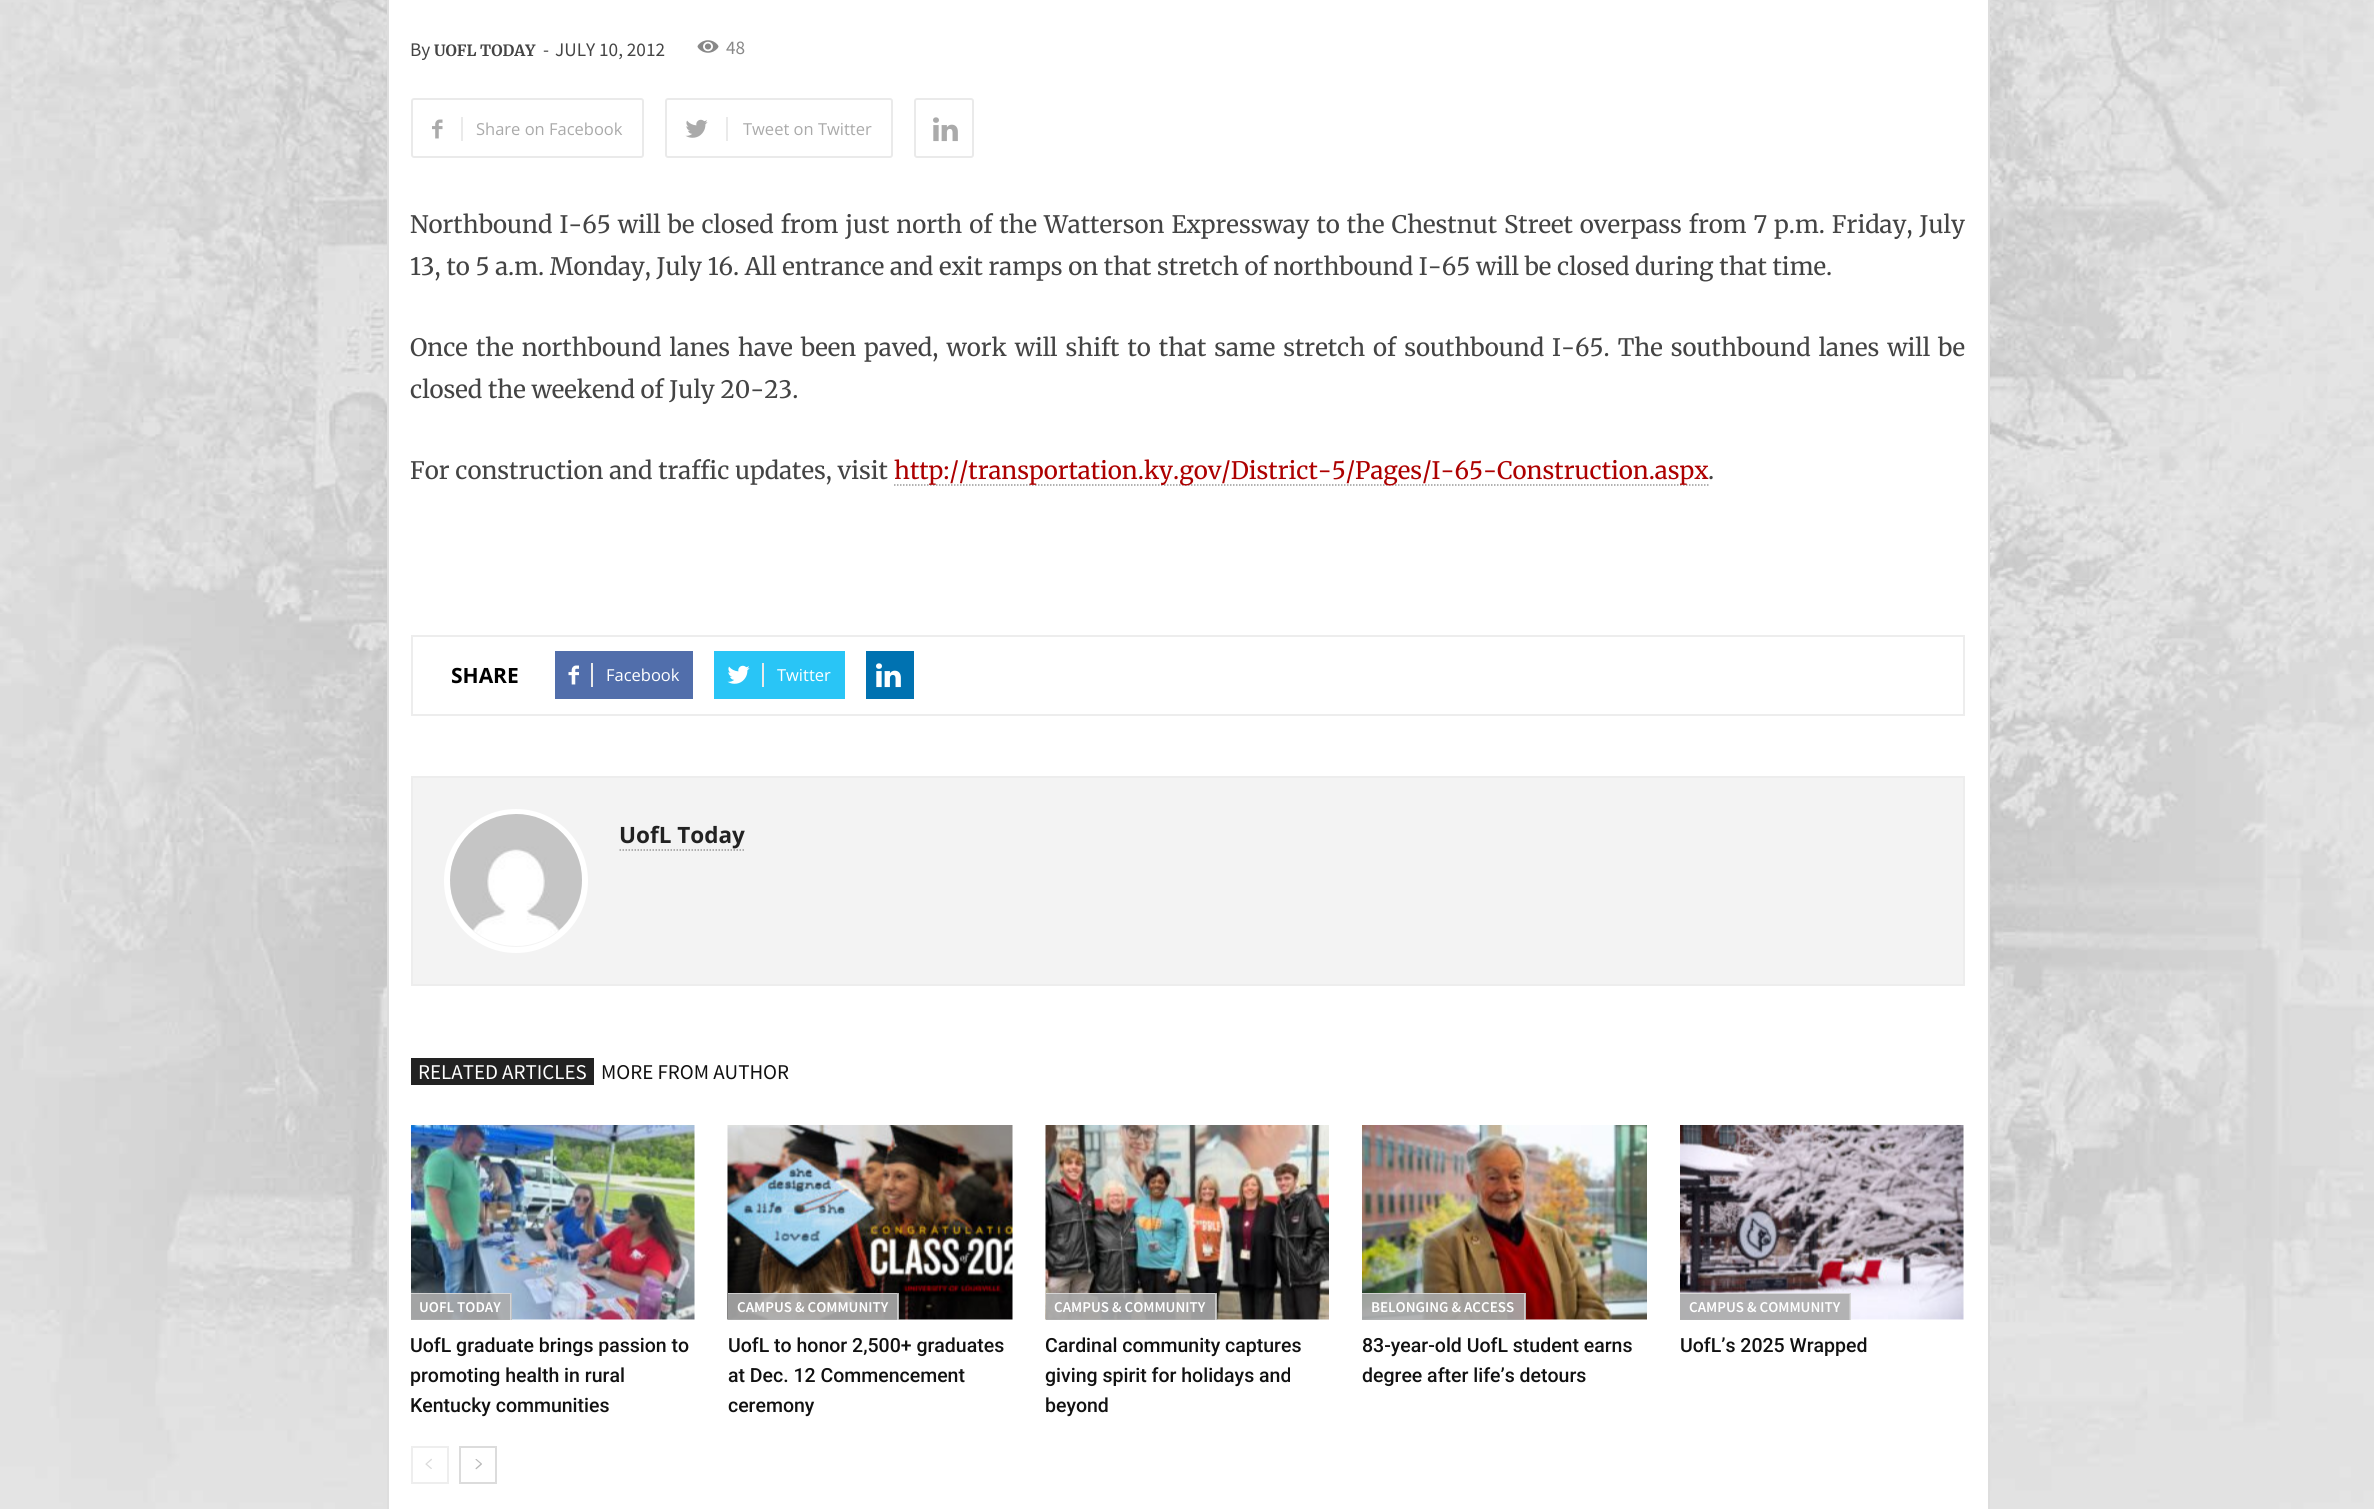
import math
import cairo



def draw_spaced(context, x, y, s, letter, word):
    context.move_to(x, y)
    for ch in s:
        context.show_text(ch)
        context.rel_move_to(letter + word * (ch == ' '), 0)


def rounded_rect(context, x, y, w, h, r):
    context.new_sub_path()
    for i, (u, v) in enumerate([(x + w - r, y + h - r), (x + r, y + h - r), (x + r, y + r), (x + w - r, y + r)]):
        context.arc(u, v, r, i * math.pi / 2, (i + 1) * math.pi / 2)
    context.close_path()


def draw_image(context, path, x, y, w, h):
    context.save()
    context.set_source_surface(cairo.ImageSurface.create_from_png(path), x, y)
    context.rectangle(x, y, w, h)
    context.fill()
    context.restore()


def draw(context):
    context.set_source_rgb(1, 1, 1)
    context.paint()
    draw_image(context, "images/1.png", 0, 0, 2374, 1509)
    context.set_source_rgb(1, 1, 1)
    context.rectangle(389, 0, 1599, 1509)
    context.fill()
    context.set_source_rgb(222 / 255, 222 / 255, 222 / 255)
    context.rectangle(1988, 0, 2, 1509)
    context.fill()
    context.rectangle(387, 0, 2, 1509)
    context.fill()
    draw_image(context, "images/2.png", 697, 40, 22, 13)
    rounded_rect(context, 412, 99, 231, 58, 2)
    context.set_source_rgb(234 / 255, 234 / 255, 234 / 255)
    context.stroke()
    draw_image(context, "images/3.png", 432, 119, 11, 20)
    context.rectangle(461, 117, 2, 24)
    context.fill()
    rounded_rect(context, 666, 99, 226, 58, 2)
    context.stroke()
    draw_image(context, "images/4.png", 685, 119, 23, 19)
    context.rectangle(726, 117, 2, 24)
    context.fill()
    rounded_rect(context, 915, 99, 58, 58, 2)
    context.stroke()
    draw_image(context, "images/5.png", 933, 117, 25, 25)
    context.new_path()
    context.move_to(894, 485)
    context.line_to(1708.5, 485)
    context.set_source_rgb(153 / 255, 153 / 255, 153 / 255)
    context.set_line_width(1.5)
    context.set_dash([1.5, 1.5])
    context.stroke()
    context.rectangle(412, 636, 1552, 79)
    context.set_source_rgb(237 / 255, 237 / 255, 237 / 255)
    context.set_line_width(2)
    context.set_dash([])
    context.stroke()
    context.set_source_rgb(81 / 255, 110 / 255, 171 / 255)
    context.rectangle(555, 651, 138, 48)
    context.fill()
    draw_image(context, "images/6.png", 568, 665, 11, 20)
    context.set_source_rgb(234 / 255, 234 / 255, 234 / 255)
    context.rectangle(591, 663, 2, 24)
    context.fill()
    context.set_source_rgb(41 / 255, 197 / 255, 246 / 255)
    context.rectangle(714, 651, 131, 48)
    context.fill()
    draw_image(context, "images/7.png", 727, 665, 23, 19)
    context.set_source_rgb(234 / 255, 234 / 255, 234 / 255)
    context.rectangle(762, 663, 2, 24)
    context.fill()
    context.set_source_rgb(0, 114 / 255, 177 / 255)
    context.rectangle(866, 651, 48, 48)
    context.fill()
    draw_image(context, "images/8.png", 876, 663, 25, 25)
    context.set_source_rgb(243 / 255, 243 / 255, 243 / 255)
    context.rectangle(412, 777, 1552, 208)
    context.fill_preserve()
    context.set_source_rgb(237 / 255, 237 / 255, 237 / 255)
    context.stroke()
    context.arc(516, 881, 69, 0, 2 * math.pi)
    context.set_source_rgb(1, 1, 1)
    context.set_line_width(6)
    context.stroke()
    draw_image(context, "images/9.png", 450, 814, 132, 132)
    context.new_path()
    context.move_to(619.5, 850)
    context.line_to(744, 850)
    context.set_source_rgb(153 / 255, 153 / 255, 153 / 255)
    context.set_line_width(1.5)
    context.set_dash([1.5, 1.5])
    context.stroke()
    context.set_source_rgb(34 / 255, 34 / 255, 34 / 255)
    context.rectangle(411, 1058, 183, 27)
    context.fill()
    draw_image(context, "images/10.png", 411, 1125, 284, 195)
    context.set_source_rgba(171 / 255, 171 / 255, 171 / 255, 0.9)
    context.rectangle(411, 1293, 101, 27)
    context.fill()
    context.set_source_rgba(1, 1, 1, 0.5)
    context.new_path()
    context.move_to(411, 1293)
    context.line_to(512, 1293)
    context.line_to(510, 1294)
    context.line_to(411, 1294)
    context.close_path()
    context.fill()
    context.new_path()
    context.move_to(511.5, 1293)
    context.line_to(511.5, 1320)
    context.line_to(510, 1320)
    context.line_to(510, 1294.5)
    context.close_path()
    context.fill()
    draw_image(context, "images/11.png", 727, 1125, 286, 195)
    context.set_source_rgba(171 / 255, 171 / 255, 171 / 255, 0.9)
    context.rectangle(728, 1293, 171, 27)
    context.fill()
    context.set_source_rgba(1, 1, 1, 0.5)
    context.new_path()
    context.move_to(728, 1293)
    context.line_to(898, 1293)
    context.line_to(897, 1294)
    context.line_to(728, 1294)
    context.close_path()
    context.fill()
    context.new_path()
    context.move_to(898.5, 1293)
    context.line_to(898.5, 1320)
    context.line_to(897, 1320)
    context.line_to(897, 1294.5)
    context.close_path()
    context.fill()
    draw_image(context, "images/12.png", 1045, 1125, 284, 195)
    context.set_source_rgba(171 / 255, 171 / 255, 171 / 255, 0.9)
    context.rectangle(1046, 1293, 171, 27)
    context.fill()
    context.set_source_rgba(1, 1, 1, 0.5)
    context.new_path()
    context.move_to(1046, 1293)
    context.line_to(1216, 1293)
    context.line_to(1215, 1294)
    context.line_to(1046, 1294)
    context.close_path()
    context.fill()
    context.new_path()
    context.move_to(1216.5, 1293)
    context.line_to(1216.5, 1320)
    context.line_to(1215, 1320)
    context.line_to(1215, 1294.5)
    context.close_path()
    context.fill()
    draw_image(context, "images/13.png", 1362, 1125, 285, 195)
    context.set_source_rgba(171 / 255, 171 / 255, 171 / 255, 0.9)
    context.rectangle(1362, 1293, 164, 27)
    context.fill()
    context.set_source_rgba(1, 1, 1, 0.5)
    context.new_path()
    context.move_to(1362, 1293)
    context.line_to(1526, 1293)
    context.line_to(1524, 1294)
    context.line_to(1362, 1294)
    context.close_path()
    context.fill()
    context.new_path()
    context.move_to(1525.5, 1293)
    context.line_to(1525.5, 1320)
    context.line_to(1524, 1320)
    context.line_to(1524, 1294.5)
    context.close_path()
    context.fill()
    draw_image(context, "images/14.png", 1680, 1125, 284, 195)
    context.set_source_rgba(171 / 255, 171 / 255, 171 / 255, 0.9)
    context.rectangle(1680, 1293, 171, 27)
    context.fill()
    context.set_source_rgba(1, 1, 1, 0.5)
    context.new_path()
    context.move_to(1680, 1293)
    context.line_to(1851, 1293)
    context.line_to(1850, 1294)
    context.line_to(1680, 1294)
    context.close_path()
    context.fill()
    context.new_path()
    context.move_to(1851, 1293)
    context.line_to(1851, 1320)
    context.line_to(1849.5, 1320)
    context.line_to(1849.5, 1294.5)
    context.close_path()
    context.fill()
    context.rectangle(412, 1447, 36, 36)
    context.set_source_rgb(238 / 255, 238 / 255, 238 / 255)
    context.set_line_width(2)
    context.set_dash([])
    context.stroke()
    draw_image(context, "images/15.png", 425, 1458, 7, 11)
    context.rectangle(460, 1447, 36, 36)
    context.set_source_rgb(220 / 255, 220 / 255, 220 / 255)
    context.stroke()
    draw_image(context, "images/16.png", 475, 1459, 7, 11)
    context.select_font_face("Source Sans Pro")
    context.set_font_size(19.25)
    context.set_source_rgb(68 / 255, 68 / 255, 68 / 255)
    context.move_to(410, 56)
    context.show_text("By")
    context.select_font_face("Merriweather", cairo.FontSlant.NORMAL, cairo.FontWeight.BOLD)
    context.set_font_size(15.5)
    context.move_to(434, 56)
    context.show_text("UOFL TODAY")
    context.select_font_face("Source Sans Pro")
    context.set_font_size(19.25)
    context.move_to(543, 56)
    context.show_text("-")
    context.move_to(555, 56)
    context.show_text("JULY 10, 2012")
    context.set_source_rgb(136 / 255, 136 / 255, 136 / 255)
    context.move_to(726, 54)
    context.show_text("48")
    context.select_font_face("Open Sans")
    context.set_font_size(16.5)
    context.set_source_rgb(170 / 255, 170 / 255, 170 / 255)
    context.move_to(476, 135)
    context.show_text("Share on Facebook")
    context.move_to(743, 135)
    context.show_text("Tweet on Twitter")
    context.select_font_face("Merriweather")
    context.set_font_size(24)
    context.set_source_rgb(68 / 255, 68 / 255, 68 / 255)
    draw_spaced(context, 410, 233, "Northbound I-65 will be closed from just north of the Watterson Expressway to the Chestnut Street overpass from 7 p.m. Friday, July", 0, 1.25)
    context.move_to(410, 275)
    context.show_text("13, to 5 a.m. Monday, July 16. All entrance and exit ramps on that stretch of northbound I-65 will be closed during that time.")
    draw_spaced(context, 410, 356, "Once the northbound lanes have been paved, work will shift to that same stretch of southbound I-65. The southbound lanes will be", 0, 2.3)
    context.move_to(410, 398)
    context.show_text("closed the weekend of July 20-23.")
    context.move_to(410, 479)
    context.show_text("For construction and traffic updates, visit")
    context.set_source_rgb(173 / 255, 0, 0)
    context.move_to(894, 479)
    context.show_text("http://transportation.ky.gov/District-5/Pages/I-65-Construction.aspx")
    context.set_source_rgb(68 / 255, 68 / 255, 68 / 255)
    context.move_to(1708, 479)
    context.show_text(".")
    context.select_font_face("Open Sans", cairo.FontSlant.NORMAL, cairo.FontWeight.BOLD)
    context.set_font_size(21)
    context.set_source_rgb(0, 0, 0)
    context.move_to(451, 683)
    context.show_text("SHARE")
    context.select_font_face("Open Sans")
    context.set_font_size(16.5)
    context.set_source_rgb(1, 1, 1)
    context.move_to(606, 681)
    context.show_text("Facebook")
    context.move_to(777, 681)
    context.show_text("Twitter")
    context.select_font_face("Open Sans", cairo.FontSlant.NORMAL, cairo.FontWeight.BOLD)
    context.set_font_size(22.5)
    context.set_source_rgb(34 / 255, 34 / 255, 34 / 255)
    context.move_to(619, 843)
    context.show_text("UofL Today")
    context.select_font_face("Source Sans Pro")
    context.set_font_size(21)
    context.set_source_rgb(1, 1, 1)
    context.move_to(418, 1079)
    context.show_text("RELATED ARTICLES")
    context.set_source_rgb(17 / 255, 17 / 255, 17 / 255)
    context.move_to(601, 1079)
    context.show_text("MORE FROM AUTHOR")
    context.select_font_face("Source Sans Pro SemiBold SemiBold")
    context.set_font_size(15)
    context.set_source_rgb(1, 1, 1)
    context.move_to(419, 1312)
    context.show_text("UOFL TODAY")
    context.select_font_face("Roboto Medium")
    context.set_font_size(19.5)
    context.set_source_rgb(17 / 255, 17 / 255, 17 / 255)
    context.move_to(410, 1352)
    context.show_text("UofL graduate brings passion to")
    context.move_to(410, 1382)
    context.show_text("promoting health in rural")
    context.move_to(410, 1412)
    context.show_text("Kentucky communities")
    context.select_font_face("Source Sans Pro SemiBold SemiBold")
    context.set_font_size(15)
    context.set_source_rgb(1, 1, 1)
    context.move_to(737, 1312)
    context.show_text("CAMPUS & COMMUNITY")
    context.select_font_face("Roboto Medium")
    context.set_font_size(19.5)
    context.set_source_rgb(17 / 255, 17 / 255, 17 / 255)
    context.move_to(728, 1352)
    context.show_text("UofL to honor 2,500+ graduates")
    context.move_to(728, 1382)
    context.show_text("at Dec. 12 Commencement")
    context.move_to(728, 1412)
    context.show_text("ceremony")
    context.select_font_face("Source Sans Pro SemiBold SemiBold")
    context.set_font_size(15)
    context.set_source_rgb(1, 1, 1)
    context.move_to(1054, 1312)
    context.show_text("CAMPUS & COMMUNITY")
    context.select_font_face("Roboto Medium")
    context.set_font_size(19.5)
    context.set_source_rgb(17 / 255, 17 / 255, 17 / 255)
    context.move_to(1045, 1352)
    context.show_text("Cardinal community captures")
    context.move_to(1045, 1382)
    context.show_text("giving spirit for holidays and")
    context.move_to(1045, 1412)
    context.show_text("beyond")
    context.select_font_face("Source Sans Pro SemiBold SemiBold")
    context.set_font_size(15)
    context.set_source_rgb(1, 1, 1)
    context.move_to(1371, 1312)
    context.show_text("BELONGING & ACCESS")
    context.select_font_face("Roboto Medium")
    context.set_font_size(19.5)
    context.set_source_rgb(17 / 255, 17 / 255, 17 / 255)
    context.move_to(1362, 1352)
    context.show_text("83-year-old UofL student earns")
    context.move_to(1362, 1382)
    context.show_text("degree after life’s detours")
    context.select_font_face("Source Sans Pro SemiBold SemiBold")
    context.set_font_size(15)
    context.set_source_rgb(1, 1, 1)
    context.move_to(1689, 1312)
    context.show_text("CAMPUS & COMMUNITY")
    context.select_font_face("Roboto Medium")
    context.set_font_size(19.5)
    context.set_source_rgb(17 / 255, 17 / 255, 17 / 255)
    context.move_to(1680, 1352)
    context.show_text("UofL’s 2025 Wrapped")


surface = cairo.ImageSurface(cairo.Format.RGB24, 2374, 1509)
context = cairo.Context(surface)
options = cairo.FontOptions()
options.set_hint_metrics(cairo.HintMetrics.OFF)
options.set_hint_style(cairo.HintStyle.NONE)
context.set_font_options(options)
context.set_miter_limit(4)
draw(context)
surface.write_to_png("out.png")
